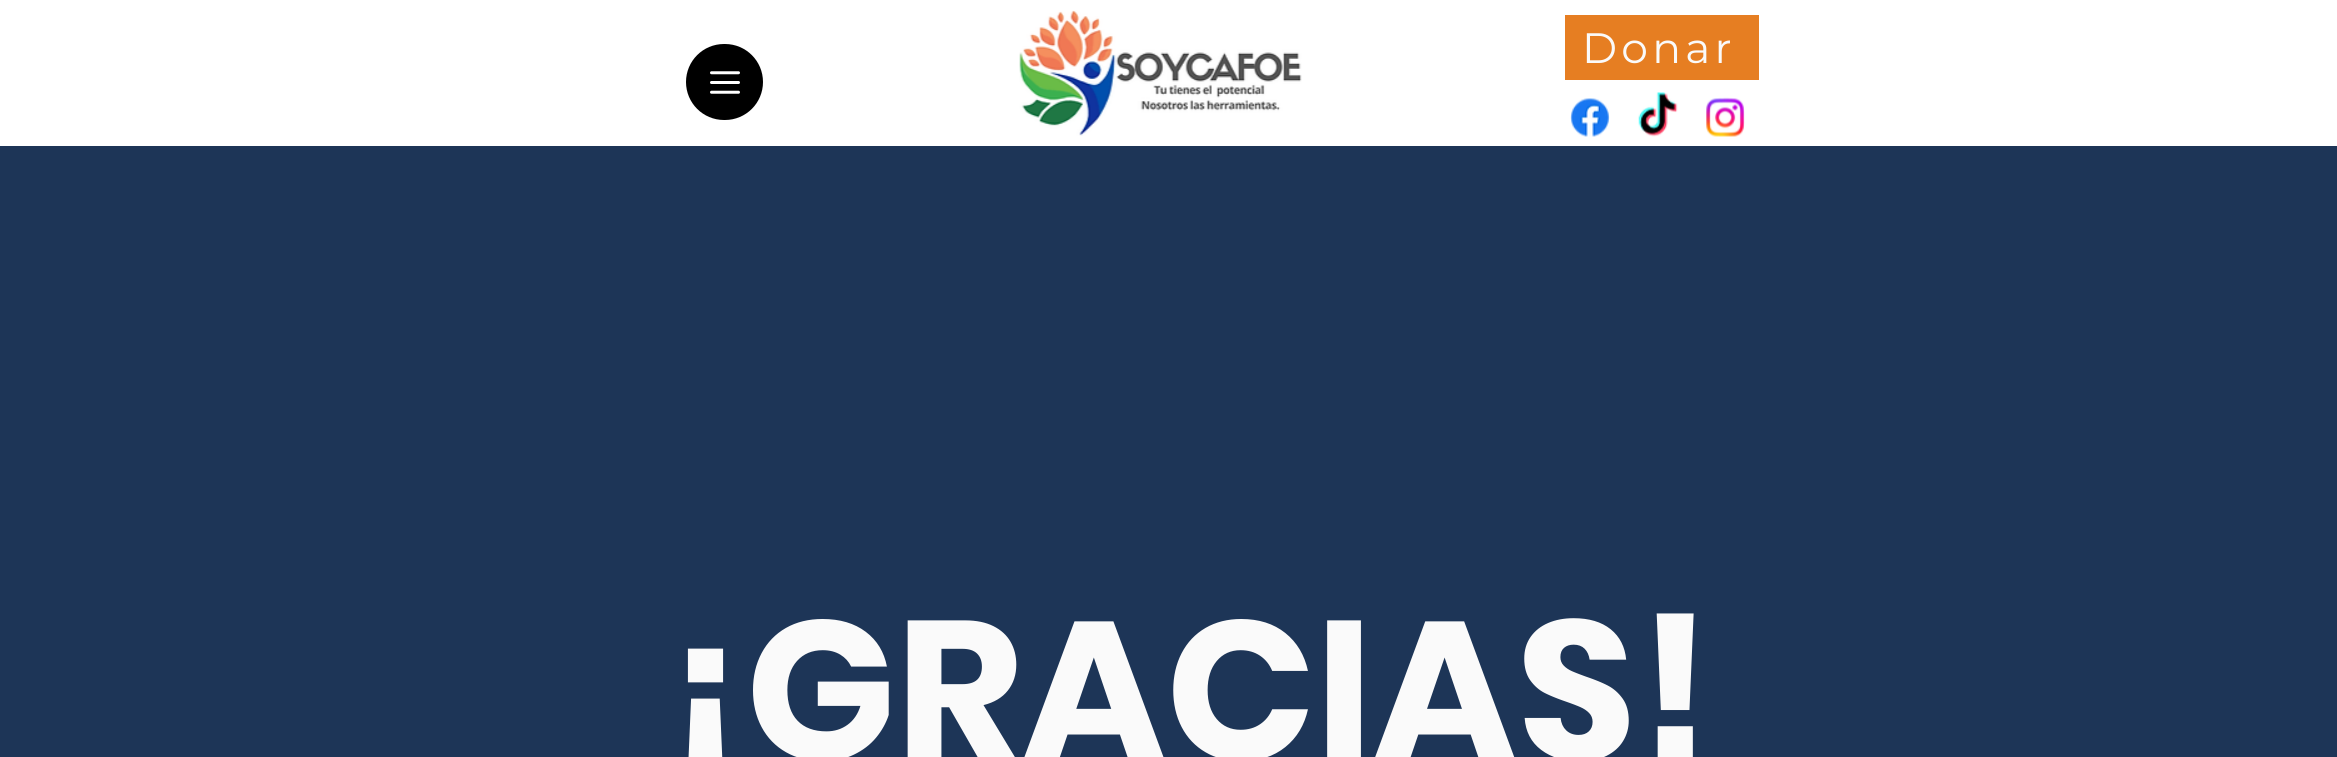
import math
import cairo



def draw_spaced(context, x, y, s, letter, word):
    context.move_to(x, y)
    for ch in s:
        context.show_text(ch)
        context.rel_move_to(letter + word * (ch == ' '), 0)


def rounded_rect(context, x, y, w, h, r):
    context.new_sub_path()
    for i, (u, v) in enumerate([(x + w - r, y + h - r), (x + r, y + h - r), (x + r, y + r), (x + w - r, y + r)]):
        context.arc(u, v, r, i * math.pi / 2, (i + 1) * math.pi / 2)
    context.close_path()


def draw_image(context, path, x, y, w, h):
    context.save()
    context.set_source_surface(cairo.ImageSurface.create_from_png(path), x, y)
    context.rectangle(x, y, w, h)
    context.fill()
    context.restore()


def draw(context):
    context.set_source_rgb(1, 1, 1)
    context.paint()
    context.set_source_rgb(0, 0, 0)
    rounded_rect(context, 686, 44, 77, 76, 38)
    context.fill()
    draw_image(context, "images/1.png", 710, 71, 30, 23)
    draw_image(context, "images/2.png", 1019, 10, 283, 126)
    context.set_source_rgb(230 / 255, 126 / 255, 34 / 255)
    context.rectangle(1565, 15, 194, 65)
    context.fill()
    draw_image(context, "images/3.png", 1570, 98, 40, 39)
    draw_image(context, "images/4.png", 1638, 92, 40, 45)
    draw_image(context, "images/5.png", 1706, 97, 39, 40)
    context.set_source_rgb(29 / 255, 53 / 255, 87 / 255)
    context.rectangle(0, 146, 2337, 611)
    context.fill()
    context.select_font_face("Montserrat")
    context.set_font_size(42.5)
    context.set_source_rgb(250 / 255, 250 / 255, 250 / 255)
    draw_spaced(context, 1582, 63, "Donar", 4.25, 0)
    context.select_font_face("Poppins", cairo.FontSlant.NORMAL, cairo.FontWeight.BOLD)
    context.set_font_size(197.5)
    context.move_to(666, 760)
    context.show_text("¡GRACIAS!")


surface = cairo.ImageSurface(cairo.Format.RGB24, 2337, 757)
context = cairo.Context(surface)
options = cairo.FontOptions()
options.set_hint_metrics(cairo.HintMetrics.OFF)
options.set_hint_style(cairo.HintStyle.NONE)
context.set_font_options(options)
context.set_miter_limit(4)
draw(context)
surface.write_to_png("out.png")
